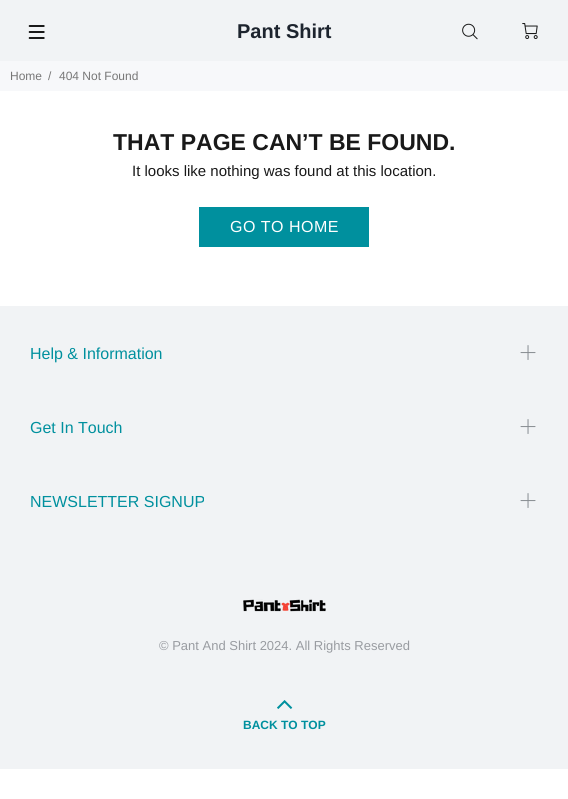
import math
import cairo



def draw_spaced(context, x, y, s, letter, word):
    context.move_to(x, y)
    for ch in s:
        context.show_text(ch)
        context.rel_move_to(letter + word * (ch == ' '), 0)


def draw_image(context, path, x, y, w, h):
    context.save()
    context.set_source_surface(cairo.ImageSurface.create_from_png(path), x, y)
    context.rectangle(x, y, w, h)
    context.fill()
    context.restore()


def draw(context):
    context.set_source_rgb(1, 1, 1)
    context.paint()
    context.set_source_rgb(241 / 255, 243 / 255, 245 / 255)
    context.rectangle(0, 0, 568, 61)
    context.fill()
    draw_image(context, "images/1.png", 28, 25, 17, 14)
    draw_image(context, "images/2.png", 462, 23, 16, 17)
    draw_image(context, "images/3.png", 522, 23, 16, 16)
    context.set_source_rgb(247 / 255, 248 / 255, 250 / 255)
    context.rectangle(0, 61, 568, 30)
    context.fill()
    context.set_source_rgb(0, 144 / 255, 158 / 255)
    context.rectangle(199, 207, 170, 40)
    context.fill()
    context.set_source_rgb(241 / 255, 243 / 255, 245 / 255)
    context.rectangle(0, 306, 568, 463)
    context.fill()
    draw_image(context, "images/4.png", 520, 345, 16, 15)
    draw_image(context, "images/4.png", 520, 419, 16, 15)
    draw_image(context, "images/4.png", 520, 493, 16, 15)
    draw_image(context, "images/5.png", 243, 599, 83, 13)
    draw_image(context, "images/6.png", 277, 700, 16, 9)
    context.select_font_face("Liberation Sans", cairo.FontSlant.NORMAL, cairo.FontWeight.BOLD)
    context.set_font_size(20)
    context.set_source_rgb(29 / 255, 36 / 255, 46 / 255)
    context.move_to(237, 38)
    context.show_text("Pant Shirt")
    context.select_font_face("Liberation Sans")
    context.set_font_size(12)
    context.set_source_rgb(119 / 255, 119 / 255, 119 / 255)
    context.move_to(10, 80)
    context.show_text("Home")
    context.move_to(48, 80)
    context.show_text("/")
    context.move_to(59, 80)
    context.show_text("404 Not Found")
    context.select_font_face("Liberation Sans", cairo.FontSlant.NORMAL, cairo.FontWeight.BOLD)
    context.set_font_size(23)
    context.set_source_rgb(25 / 255, 25 / 255, 25 / 255)
    context.move_to(113, 150)
    context.show_text("THAT PAGE CAN’T BE FOUND.")
    context.select_font_face("Liberation Sans")
    context.set_font_size(15)
    context.move_to(132, 176)
    context.show_text("It looks like nothing was found at this location.")
    context.set_font_size(16)
    context.set_source_rgb(1, 1, 1)
    draw_spaced(context, 230, 232, "GO TO HOME", 0.5, 0)
    context.set_source_rgb(0, 144 / 255, 158 / 255)
    context.move_to(30, 359)
    context.show_text("Help & Information")
    context.move_to(30, 433)
    context.show_text("Get In Touch")
    context.move_to(30, 507)
    context.show_text("NEWSLETTER SIGNUP")
    context.set_font_size(13)
    context.set_source_rgb(153 / 255, 156 / 255, 161 / 255)
    context.move_to(159, 650)
    context.show_text("© Pant And Shirt 2024. All Rights Reserved")
    context.select_font_face("Liberation Sans", cairo.FontSlant.NORMAL, cairo.FontWeight.BOLD)
    context.set_font_size(12)
    context.set_source_rgb(0, 144 / 255, 158 / 255)
    context.move_to(243, 729)
    context.show_text("BACK TO TOP")


surface = cairo.ImageSurface(cairo.Format.RGB24, 568, 799)
context = cairo.Context(surface)
options = cairo.FontOptions()
options.set_hint_metrics(cairo.HintMetrics.OFF)
options.set_hint_style(cairo.HintStyle.NONE)
context.set_font_options(options)
context.set_miter_limit(4)
draw(context)
surface.write_to_png("out.png")
